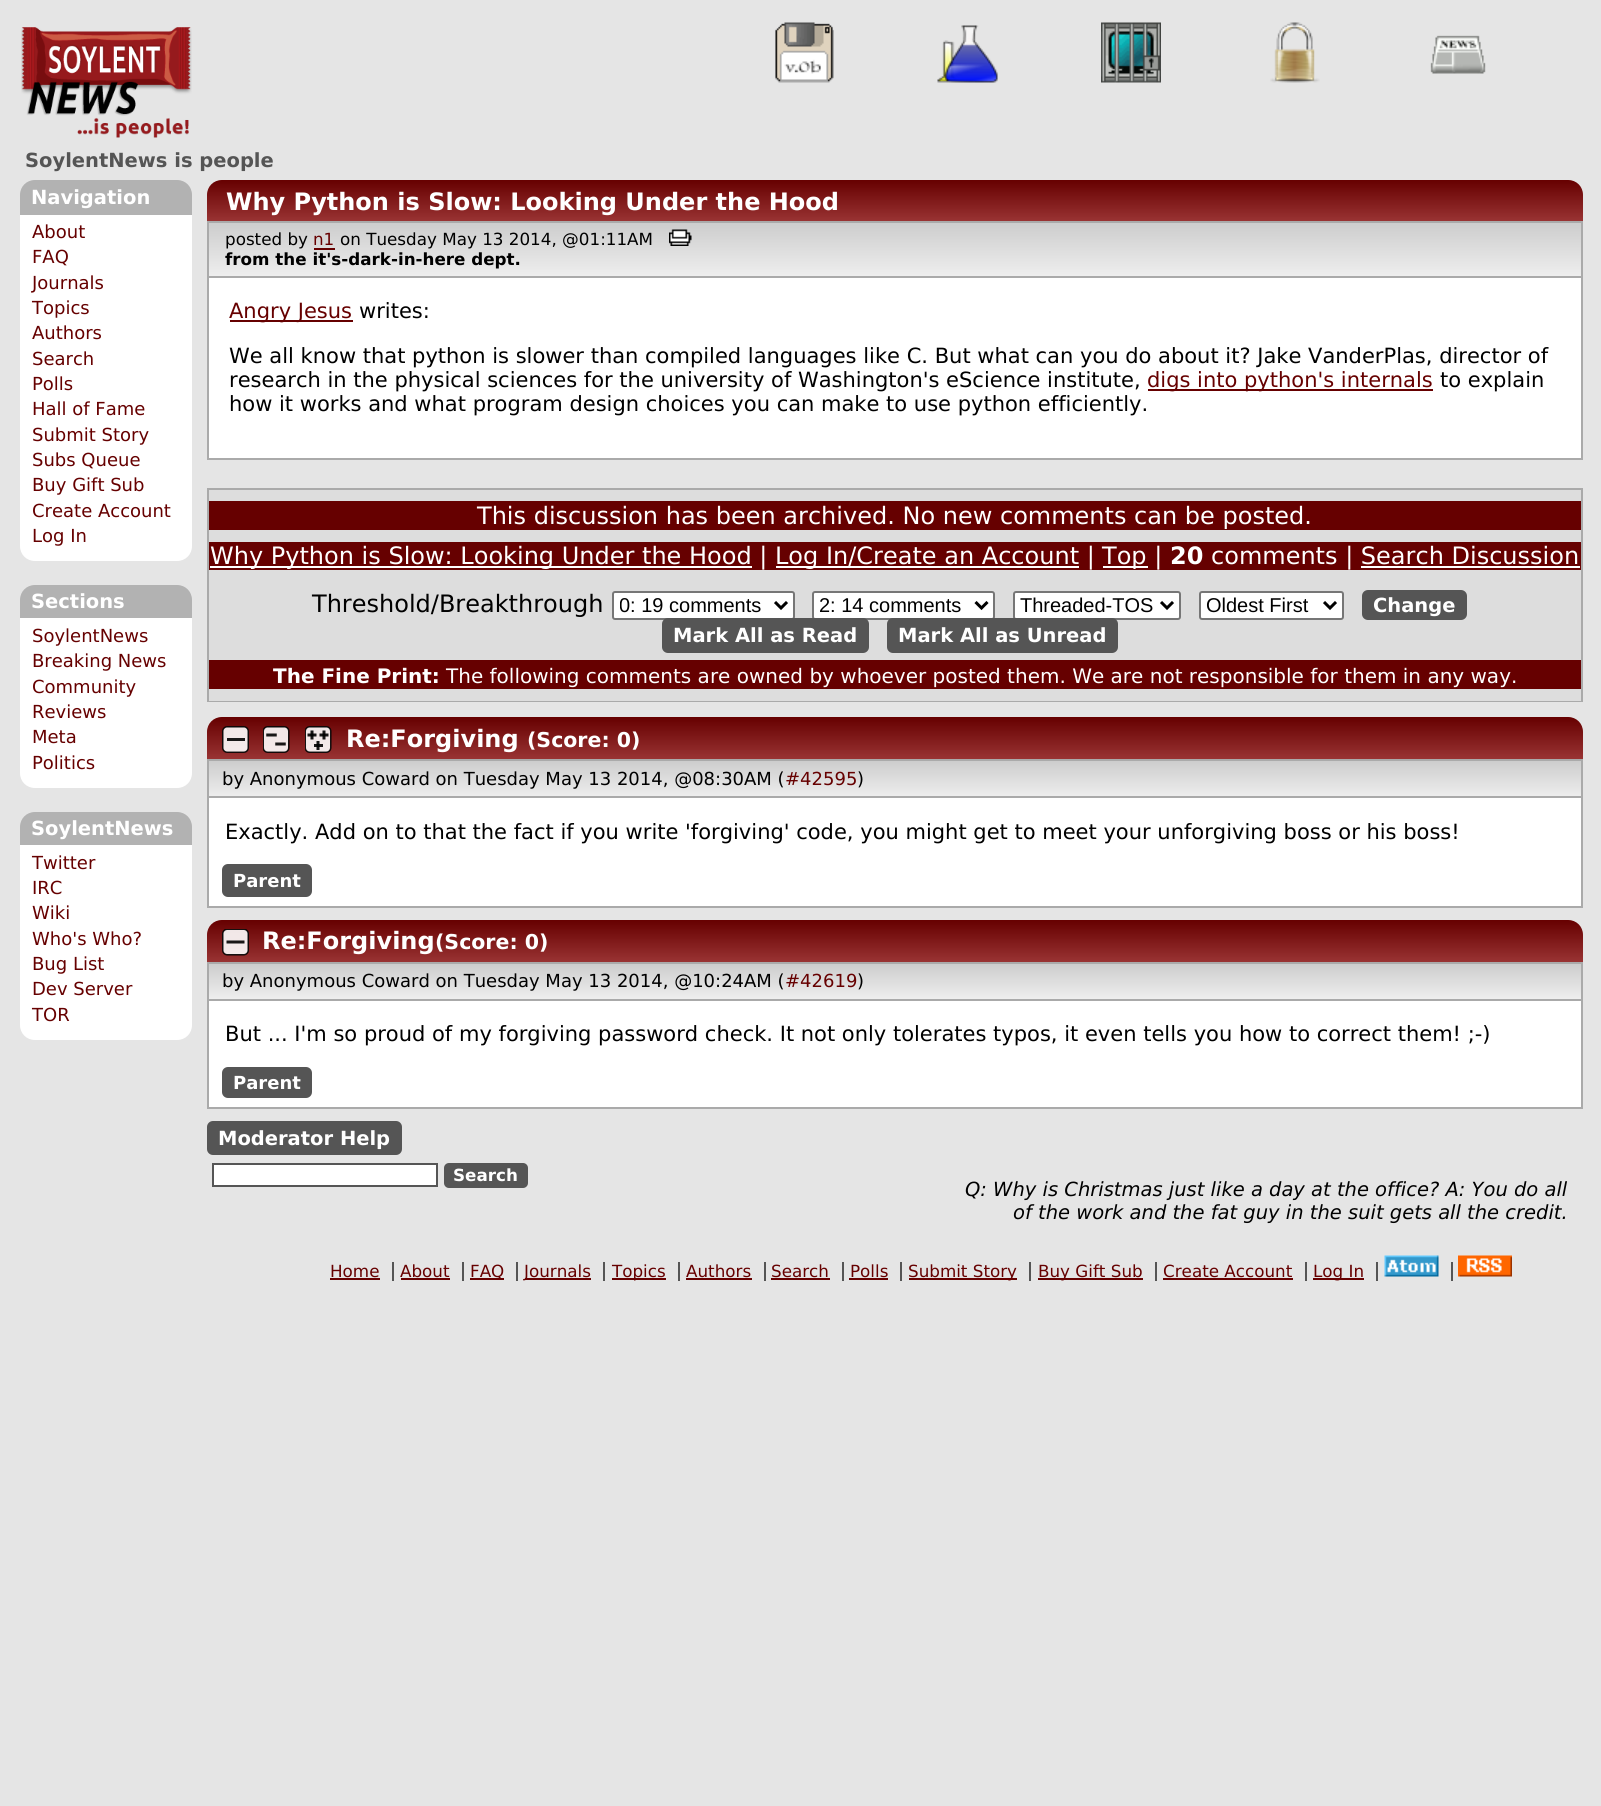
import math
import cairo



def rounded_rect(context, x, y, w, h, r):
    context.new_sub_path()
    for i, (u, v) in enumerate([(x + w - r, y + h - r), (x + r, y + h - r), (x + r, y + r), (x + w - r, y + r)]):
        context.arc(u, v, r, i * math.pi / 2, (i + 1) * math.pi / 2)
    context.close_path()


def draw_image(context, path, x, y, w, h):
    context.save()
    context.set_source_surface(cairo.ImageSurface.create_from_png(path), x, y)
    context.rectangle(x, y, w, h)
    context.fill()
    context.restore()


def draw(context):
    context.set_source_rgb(229 / 255, 229 / 255, 229 / 255)
    context.paint()
    draw_image(context, "images/1.png", 21, 27, 171, 111)
    draw_image(context, "images/2.png", 775, 22, 59, 61)
    draw_image(context, "images/3.png", 937, 25, 61, 58)
    draw_image(context, "images/4.png", 1101, 22, 60, 61)
    draw_image(context, "images/5.png", 1270, 22, 50, 61)
    draw_image(context, "images/6.png", 1430, 35, 56, 39)
    context.set_source_rgb(178 / 255, 178 / 255, 178 / 255)
    context.new_path()
    context.move_to(35, 180)
    context.line_to(177, 180)
    context.curve_to(185.5, 180, 192, 186.5, 192, 195)
    context.line_to(192, 215)
    context.line_to(20, 215)
    context.line_to(20, 195)
    context.curve_to(20, 186.5, 26.5, 180, 35, 180)
    context.close_path()
    context.fill()
    context.set_source_rgb(1, 1, 1)
    context.new_path()
    context.move_to(20, 215)
    context.line_to(192, 215)
    context.line_to(192, 546)
    context.curve_to(192, 554.5, 185.5, 561, 177, 561)
    context.line_to(35, 561)
    context.curve_to(26.5, 561, 20, 554.5, 20, 546)
    context.close_path()
    context.fill()
    context.set_source_rgb(178 / 255, 178 / 255, 178 / 255)
    context.new_path()
    context.move_to(35, 585)
    context.line_to(177, 585)
    context.curve_to(185.5, 585, 192, 591.5, 192, 600)
    context.line_to(192, 618)
    context.line_to(20, 618)
    context.line_to(20, 600)
    context.curve_to(20, 591.5, 26.5, 585, 35, 585)
    context.close_path()
    context.fill()
    context.set_source_rgb(1, 1, 1)
    context.new_path()
    context.move_to(20, 618)
    context.line_to(192, 618)
    context.line_to(192, 773)
    context.curve_to(192, 781.5, 185.5, 788, 177, 788)
    context.line_to(35, 788)
    context.curve_to(26.5, 788, 20, 781.5, 20, 773)
    context.close_path()
    context.fill()
    context.set_source_rgb(178 / 255, 178 / 255, 178 / 255)
    context.new_path()
    context.move_to(35, 812)
    context.line_to(177, 812)
    context.curve_to(185.5, 812, 192, 818.5, 192, 827)
    context.line_to(192, 845)
    context.line_to(20, 845)
    context.line_to(20, 827)
    context.curve_to(20, 818.5, 26.5, 812, 35, 812)
    context.close_path()
    context.fill()
    context.set_source_rgb(1, 1, 1)
    context.new_path()
    context.move_to(20, 845)
    context.line_to(192, 845)
    context.line_to(192, 1025)
    context.curve_to(192, 1033.5, 185.5, 1040, 177, 1040)
    context.line_to(35, 1040)
    context.curve_to(26.5, 1040, 20, 1033.5, 20, 1025)
    context.close_path()
    context.fill()
    gradient = cairo.LinearGradient(895, 180, 895, 221)
    gradient.add_color_stop_rgba(0, 102 / 255, 0, 0, 1)
    gradient.add_color_stop_rgba(1, 153 / 255, 51 / 255, 51 / 255, 1)
    context.set_source(gradient)
    context.new_path()
    context.move_to(222, 180)
    context.line_to(1568, 180)
    context.curve_to(1576.5, 180, 1583, 186.5, 1583, 195)
    context.line_to(1583, 221)
    context.line_to(207, 221)
    context.line_to(207, 195)
    context.curve_to(207, 186.5, 213.5, 180, 222, 180)
    context.close_path()
    context.fill()
    gradient = cairo.LinearGradient(895, 222, 895, 276)
    gradient.add_color_stop_rgba(0, 204 / 255, 204 / 255, 204 / 255, 1)
    gradient.add_color_stop_rgba(1, 238 / 255, 238 / 255, 238 / 255, 1)
    context.set_source(gradient)
    context.rectangle(209, 223, 1372, 53)
    context.fill()
    context.rectangle(208, 222, 1374, 55)
    context.set_source_rgb(170 / 255, 170 / 255, 170 / 255)
    context.stroke()
    context.set_source_rgb(102 / 255, 0, 0)
    context.rectangle(314, 248, 21, 2)
    context.fill()
    draw_image(context, "images/7.png", 669, 229, 23, 17)
    context.set_source_rgb(1, 1, 1)
    context.rectangle(209, 278, 1372, 180)
    context.fill()
    context.set_source_rgb(170 / 255, 170 / 255, 170 / 255)
    context.rectangle(1581, 278, 2, 181)
    context.fill()
    context.rectangle(207, 458, 1376, 2)
    context.fill()
    context.rectangle(207, 278, 2, 181)
    context.fill()
    context.set_source_rgb(102 / 255, 0, 0)
    context.rectangle(230, 320, 123, 2)
    context.fill()
    context.rectangle(1148, 389, 285, 2)
    context.fill()
    context.set_source_rgb(221 / 255, 221 / 255, 221 / 255)
    context.rectangle(209, 490, 1372, 52)
    context.fill()
    context.rectangle(208, 489, 1374, 212)
    context.set_source_rgb(170 / 255, 170 / 255, 170 / 255)
    context.stroke()
    context.set_source_rgb(102 / 255, 0, 0)
    context.rectangle(209, 501, 1372, 29)
    context.fill()
    context.rectangle(209, 542, 1372, 28)
    context.fill()
    context.set_source_rgb(1, 1, 1)
    context.rectangle(210, 566, 542, 2)
    context.fill()
    context.rectangle(776, 566, 303, 2)
    context.fill()
    context.rectangle(1103, 566, 45, 2)
    context.fill()
    context.rectangle(1361, 566, 219, 2)
    context.fill()
    context.set_source_rgb(221 / 255, 221 / 255, 221 / 255)
    context.rectangle(209, 570, 1372, 131)
    context.fill()
    context.set_source_rgb(1, 1, 1)
    rounded_rect(context, 613, 592, 181, 27, 2)
    context.fill_preserve()
    context.set_source_rgb(118 / 255, 118 / 255, 118 / 255)
    context.stroke()
    context.new_path()
    context.move_to(775, 602)
    context.line_to(781, 608)
    context.line_to(787, 602)
    context.set_source_rgb(0, 0, 0)
    context.set_line_width(3)
    context.stroke()
    context.set_source_rgb(1, 1, 1)
    rounded_rect(context, 813, 592, 181, 27, 2)
    context.fill_preserve()
    context.set_source_rgb(118 / 255, 118 / 255, 118 / 255)
    context.set_line_width(2)
    context.stroke()
    context.new_path()
    context.move_to(975.5, 602)
    context.line_to(981.5, 608)
    context.line_to(987.5, 602)
    context.set_source_rgb(0, 0, 0)
    context.set_line_width(3)
    context.stroke()
    context.set_source_rgb(1, 1, 1)
    rounded_rect(context, 1014, 592, 166, 27, 2)
    context.fill_preserve()
    context.set_source_rgb(118 / 255, 118 / 255, 118 / 255)
    context.set_line_width(2)
    context.stroke()
    context.new_path()
    context.move_to(1161, 602)
    context.line_to(1167, 608)
    context.line_to(1173, 602)
    context.set_source_rgb(0, 0, 0)
    context.set_line_width(3)
    context.stroke()
    context.set_source_rgb(1, 1, 1)
    rounded_rect(context, 1200, 592, 143, 27, 2)
    context.fill_preserve()
    context.set_source_rgb(118 / 255, 118 / 255, 118 / 255)
    context.set_line_width(2)
    context.stroke()
    context.new_path()
    context.move_to(1324, 602)
    context.line_to(1330, 608)
    context.line_to(1336, 602)
    context.set_source_rgb(0, 0, 0)
    context.set_line_width(3)
    context.stroke()
    context.set_source_rgb(85 / 255, 85 / 255, 85 / 255)
    rounded_rect(context, 1362, 590, 105, 30, 6)
    context.fill()
    rounded_rect(context, 662, 618, 207, 35, 6)
    context.fill()
    rounded_rect(context, 887, 618, 231, 35, 6)
    context.fill()
    context.set_source_rgb(102 / 255, 0, 0)
    context.rectangle(209, 660, 1372, 29)
    context.fill()
    gradient = cairo.LinearGradient(895, 717, 895, 759)
    gradient.add_color_stop_rgba(0, 102 / 255, 0, 0, 1)
    gradient.add_color_stop_rgba(1, 153 / 255, 51 / 255, 51 / 255, 1)
    context.set_source(gradient)
    context.new_path()
    context.move_to(222, 717)
    context.line_to(1568, 717)
    context.curve_to(1576.5, 717, 1583, 723.5, 1583, 732)
    context.line_to(1583, 759)
    context.line_to(207, 759)
    context.line_to(207, 732)
    context.curve_to(207, 723.5, 213.5, 717, 222, 717)
    context.close_path()
    context.fill()
    draw_image(context, "images/8.png", 222, 726, 27, 27)
    draw_image(context, "images/9.png", 263, 726, 27, 27)
    draw_image(context, "images/10.png", 305, 726, 27, 27)
    gradient = cairo.LinearGradient(895, 760, 895, 797)
    gradient.add_color_stop_rgba(0, 204 / 255, 204 / 255, 204 / 255, 1)
    gradient.add_color_stop_rgba(1, 238 / 255, 238 / 255, 238 / 255, 1)
    context.set_source(gradient)
    context.rectangle(209, 761, 1372, 35)
    context.fill()
    context.rectangle(208, 760, 1374, 37)
    context.set_source_rgb(170 / 255, 170 / 255, 170 / 255)
    context.set_line_width(2)
    context.stroke()
    context.set_source_rgb(1, 1, 1)
    context.rectangle(209, 798, 1372, 108)
    context.fill()
    context.set_source_rgb(170 / 255, 170 / 255, 170 / 255)
    context.rectangle(1581, 798, 2, 110)
    context.fill()
    context.rectangle(207, 798, 2, 57)
    context.fill()
    context.rectangle(207, 906, 1376, 2)
    context.fill()
    context.rectangle(207, 855, 2, 53)
    context.fill()
    context.set_source_rgb(85 / 255, 85 / 255, 85 / 255)
    rounded_rect(context, 222, 864, 90, 33, 6)
    context.fill()
    gradient = cairo.LinearGradient(895, 920, 895, 962)
    gradient.add_color_stop_rgba(0, 102 / 255, 0, 0, 1)
    gradient.add_color_stop_rgba(1, 153 / 255, 51 / 255, 51 / 255, 1)
    context.set_source(gradient)
    context.new_path()
    context.move_to(222, 920)
    context.line_to(1568, 920)
    context.curve_to(1576.5, 920, 1583, 926.5, 1583, 935)
    context.line_to(1583, 962)
    context.line_to(207, 962)
    context.line_to(207, 935)
    context.curve_to(207, 926.5, 213.5, 920, 222, 920)
    context.close_path()
    context.fill()
    draw_image(context, "images/11.png", 222, 929, 27, 27)
    gradient = cairo.LinearGradient(895, 963, 895, 999)
    gradient.add_color_stop_rgba(0, 204 / 255, 204 / 255, 204 / 255, 1)
    gradient.add_color_stop_rgba(1, 238 / 255, 238 / 255, 238 / 255, 1)
    context.set_source(gradient)
    context.rectangle(209, 964, 1372, 35)
    context.fill()
    context.rectangle(208, 963, 1374, 37)
    context.set_source_rgb(170 / 255, 170 / 255, 170 / 255)
    context.stroke()
    context.set_source_rgb(1, 1, 1)
    context.rectangle(209, 1001, 1372, 106)
    context.fill()
    context.set_source_rgb(170 / 255, 170 / 255, 170 / 255)
    context.rectangle(1581, 1001, 2, 108)
    context.fill()
    context.rectangle(207, 1001, 2, 57)
    context.fill()
    context.rectangle(207, 1107, 1376, 2)
    context.fill()
    context.rectangle(207, 1058, 2, 51)
    context.fill()
    context.set_source_rgb(85 / 255, 85 / 255, 85 / 255)
    rounded_rect(context, 222, 1067, 90, 31, 6)
    context.fill()
    rounded_rect(context, 207, 1121, 195, 34, 6)
    context.fill()
    context.set_source_rgb(1, 1, 1)
    context.rectangle(213, 1164, 224, 22)
    context.fill_preserve()
    context.set_source_rgb(85 / 255, 85 / 255, 85 / 255)
    context.stroke()
    rounded_rect(context, 444, 1163, 84, 25, 5)
    context.fill()
    context.set_source_rgb(102 / 255, 0, 0)
    context.rectangle(330, 1278, 50, 2)
    context.fill()
    context.set_source_rgb(85 / 255, 85 / 255, 85 / 255)
    context.rectangle(392, 1262, 2, 19)
    context.fill()
    context.set_source_rgb(102 / 255, 0, 0)
    context.rectangle(401, 1278, 49, 2)
    context.fill()
    context.set_source_rgb(85 / 255, 85 / 255, 85 / 255)
    context.rectangle(462, 1262, 2, 19)
    context.fill()
    context.set_source_rgb(102 / 255, 0, 0)
    context.rectangle(470, 1278, 34, 2)
    context.fill()
    context.set_source_rgb(85 / 255, 85 / 255, 85 / 255)
    context.rectangle(516, 1262, 2, 19)
    context.fill()
    context.set_source_rgb(102 / 255, 0, 0)
    context.rectangle(525, 1278, 66, 2)
    context.fill()
    context.set_source_rgb(85 / 255, 85 / 255, 85 / 255)
    context.rectangle(603, 1262, 2, 19)
    context.fill()
    context.set_source_rgb(102 / 255, 0, 0)
    context.rectangle(612, 1278, 54, 2)
    context.fill()
    context.set_source_rgb(85 / 255, 85 / 255, 85 / 255)
    context.rectangle(678, 1262, 2, 19)
    context.fill()
    context.set_source_rgb(102 / 255, 0, 0)
    context.rectangle(686, 1278, 66, 2)
    context.fill()
    context.set_source_rgb(85 / 255, 85 / 255, 85 / 255)
    context.rectangle(764, 1262, 2, 19)
    context.fill()
    context.set_source_rgb(102 / 255, 0, 0)
    context.rectangle(771, 1278, 59, 2)
    context.fill()
    context.set_source_rgb(85 / 255, 85 / 255, 85 / 255)
    context.rectangle(842, 1262, 2, 19)
    context.fill()
    context.set_source_rgb(102 / 255, 0, 0)
    context.rectangle(849, 1278, 39, 2)
    context.fill()
    context.set_source_rgb(85 / 255, 85 / 255, 85 / 255)
    context.rectangle(900, 1262, 2, 19)
    context.fill()
    context.set_source_rgb(102 / 255, 0, 0)
    context.rectangle(909, 1278, 108, 2)
    context.fill()
    context.set_source_rgb(85 / 255, 85 / 255, 85 / 255)
    context.rectangle(1029, 1262, 2, 19)
    context.fill()
    context.set_source_rgb(102 / 255, 0, 0)
    context.rectangle(1038, 1278, 105, 2)
    context.fill()
    context.set_source_rgb(85 / 255, 85 / 255, 85 / 255)
    context.rectangle(1155, 1262, 2, 19)
    context.fill()
    context.set_source_rgb(102 / 255, 0, 0)
    context.rectangle(1163, 1278, 130, 2)
    context.fill()
    context.set_source_rgb(85 / 255, 85 / 255, 85 / 255)
    context.rectangle(1305, 1262, 2, 19)
    context.fill()
    context.set_source_rgb(102 / 255, 0, 0)
    context.rectangle(1313, 1278, 51, 2)
    context.fill()
    context.set_source_rgb(85 / 255, 85 / 255, 85 / 255)
    context.rectangle(1376, 1262, 2, 19)
    context.fill()
    draw_image(context, "images/12.png", 1384, 1255, 55, 22)
    context.rectangle(1451, 1262, 2, 19)
    context.fill()
    draw_image(context, "images/13.png", 1458, 1255, 54, 22)
    context.select_font_face("DejaVu Sans", cairo.FontSlant.NORMAL, cairo.FontWeight.BOLD)
    context.set_font_size(19.5)
    context.move_to(25, 167)
    context.show_text("SoylentNews is people")
    context.set_source_rgb(1, 1, 1)
    context.move_to(31, 204)
    context.show_text("Navigation")
    context.select_font_face("DejaVu Sans")
    context.set_font_size(18)
    context.set_source_rgb(102 / 255, 0, 0)
    context.move_to(32, 238)
    context.show_text("About")
    context.move_to(32, 263)
    context.show_text("FAQ")
    context.move_to(32, 289)
    context.show_text("Journals")
    context.move_to(32, 314)
    context.show_text("Topics")
    context.move_to(32, 339)
    context.show_text("Authors")
    context.move_to(32, 365)
    context.show_text("Search")
    context.move_to(32, 390)
    context.show_text("Polls")
    context.move_to(32, 415)
    context.show_text("Hall of Fame")
    context.move_to(32, 441)
    context.show_text("Submit Story")
    context.move_to(32, 466)
    context.show_text("Subs Queue")
    context.move_to(32, 491)
    context.show_text("Buy Gift Sub")
    context.move_to(32, 517)
    context.show_text("Create Account")
    context.move_to(32, 542)
    context.show_text("Log In")
    context.select_font_face("DejaVu Sans", cairo.FontSlant.NORMAL, cairo.FontWeight.BOLD)
    context.set_font_size(19.5)
    context.set_source_rgb(1, 1, 1)
    context.move_to(31, 608)
    context.show_text("Sections")
    context.select_font_face("DejaVu Sans")
    context.set_font_size(18)
    context.set_source_rgb(102 / 255, 0, 0)
    context.move_to(32, 642)
    context.show_text("SoylentNews")
    context.move_to(32, 667)
    context.show_text("Breaking News")
    context.move_to(32, 693)
    context.show_text("Community")
    context.move_to(32, 718)
    context.show_text("Reviews")
    context.move_to(32, 743)
    context.show_text("Meta")
    context.move_to(32, 769)
    context.show_text("Politics")
    context.select_font_face("DejaVu Sans", cairo.FontSlant.NORMAL, cairo.FontWeight.BOLD)
    context.set_font_size(19.5)
    context.set_source_rgb(1, 1, 1)
    context.move_to(31, 835)
    context.show_text("SoylentNews")
    context.select_font_face("DejaVu Sans")
    context.set_font_size(18)
    context.set_source_rgb(102 / 255, 0, 0)
    context.move_to(32, 869)
    context.show_text("Twitter")
    context.move_to(32, 894)
    context.show_text("IRC")
    context.move_to(32, 919)
    context.show_text("Wiki")
    context.move_to(32, 945)
    context.show_text("Who's Who?")
    context.move_to(32, 970)
    context.show_text("Bug List")
    context.move_to(32, 995)
    context.show_text("Dev Server")
    context.move_to(32, 1021)
    context.show_text("TOR")
    context.select_font_face("DejaVu Sans", cairo.FontSlant.NORMAL, cairo.FontWeight.BOLD)
    context.set_font_size(24)
    context.set_source_rgb(1, 1, 1)
    context.move_to(226, 210)
    context.show_text("Why Python is Slow: Looking Under the Hood")
    context.select_font_face("DejaVu Sans")
    context.set_font_size(16.75)
    context.set_source_rgb(0, 0, 0)
    context.move_to(225, 245)
    context.show_text("posted by")
    context.set_source_rgb(102 / 255, 0, 0)
    context.move_to(313, 245)
    context.show_text("n1")
    context.set_source_rgb(0, 0, 0)
    context.move_to(340, 245)
    context.show_text("on Tuesday May 13 2014, @01:11AM")
    context.select_font_face("DejaVu Sans", cairo.FontSlant.NORMAL, cairo.FontWeight.BOLD)
    context.move_to(225, 265)
    context.show_text("from the it's-dark-in-here dept.")
    context.select_font_face("DejaVu Sans")
    context.set_font_size(21)
    context.set_source_rgb(102 / 255, 0, 0)
    context.move_to(229, 318)
    context.show_text("Angry Jesus")
    context.set_source_rgb(0, 0, 0)
    context.move_to(359, 318)
    context.show_text("writes:")
    context.move_to(229, 363)
    context.show_text("We all know that python is slower than compiled languages like C. But what can you do about it? Jake VanderPlas, director of")
    context.move_to(229, 387)
    context.show_text("research in the physical sciences for the university of Washington's eScience institute,")
    context.set_source_rgb(102 / 255, 0, 0)
    context.move_to(1147, 387)
    context.show_text("digs into python's internals")
    context.set_source_rgb(0, 0, 0)
    context.move_to(1440, 387)
    context.show_text("to explain")
    context.move_to(229, 411)
    context.show_text("how it works and what program design choices you can make to use python efficiently.")
    context.set_font_size(24)
    context.set_source_rgb(1, 1, 1)
    context.move_to(477, 524)
    context.show_text("This discussion has been archived. No new comments can be posted.")
    context.move_to(210, 564)
    context.show_text("Why Python is Slow: Looking Under the Hood |")
    context.move_to(775, 564)
    context.show_text("Log In/Create an Account |")
    context.move_to(1102, 564)
    context.show_text("Top |")
    context.select_font_face("DejaVu Sans", cairo.FontSlant.NORMAL, cairo.FontWeight.BOLD)
    context.move_to(1170, 564)
    context.show_text("20")
    context.select_font_face("DejaVu Sans")
    context.move_to(1211, 564)
    context.show_text("comments | Search Discussion")
    context.set_source_rgb(0, 0, 0)
    context.move_to(312, 612)
    context.show_text("Threshold/Breakthrough")
    context.save()
    context.rectangle(620, 593, 150, 25)
    context.clip()
    context.select_font_face("Liberation Sans")
    context.set_font_size(20)
    context.move_to(619, 612)
    context.show_text("0: 19 comments")
    context.restore()
    context.select_font_face("Liberation Sans")
    context.set_font_size(20)
    context.move_to(819, 612)
    context.show_text("2: 14 comments")
    context.move_to(1020, 612)
    context.show_text("Threaded-TOS")
    context.move_to(1206, 612)
    context.show_text("Oldest First")
    context.select_font_face("DejaVu Sans", cairo.FontSlant.NORMAL, cairo.FontWeight.BOLD)
    context.set_font_size(19.5)
    context.set_source_rgb(1, 1, 1)
    context.move_to(1373, 612)
    context.show_text("Change")
    context.move_to(673, 642)
    context.show_text("Mark All as Read")
    context.move_to(898, 642)
    context.show_text("Mark All as Unread")
    context.set_font_size(20)
    context.move_to(273, 683)
    context.show_text("The Fine Print:")
    context.select_font_face("DejaVu Sans")
    context.move_to(446, 683)
    context.show_text("The following comments are owned by whoever posted them. We are not responsible for them in any way.")
    context.select_font_face("DejaVu Sans", cairo.FontSlant.NORMAL, cairo.FontWeight.BOLD)
    context.set_font_size(24)
    context.move_to(346, 747)
    context.show_text("Re:Forgiving")
    context.set_font_size(20.5)
    context.move_to(527, 747)
    context.show_text("(Score: 0)")
    context.select_font_face("DejaVu Sans")
    context.set_font_size(18)
    context.set_source_rgb(0, 0, 0)
    context.move_to(222, 785)
    context.show_text("by Anonymous Coward on Tuesday May 13 2014, @08:30AM (")
    context.set_source_rgb(102 / 255, 0, 0)
    context.move_to(785, 785)
    context.show_text("#42595")
    context.set_source_rgb(0, 0, 0)
    context.move_to(857, 785)
    context.show_text(")")
    context.set_font_size(21)
    context.move_to(225, 839)
    context.show_text("Exactly. Add on to that the fact if you write 'forgiving' code, you might get to meet your unforgiving boss or his boss!")
    context.select_font_face("DejaVu Sans", cairo.FontSlant.NORMAL, cairo.FontWeight.BOLD)
    context.set_font_size(18)
    context.set_source_rgb(1, 1, 1)
    context.move_to(233, 887)
    context.show_text("Parent")
    context.set_font_size(24)
    context.move_to(262, 949)
    context.show_text("Re:Forgiving")
    context.set_font_size(20.5)
    context.move_to(435, 949)
    context.show_text("(Score: 0)")
    context.select_font_face("DejaVu Sans")
    context.set_font_size(18)
    context.set_source_rgb(0, 0, 0)
    context.move_to(222, 987)
    context.show_text("by Anonymous Coward on Tuesday May 13 2014, @10:24AM (")
    context.set_source_rgb(102 / 255, 0, 0)
    context.move_to(785, 987)
    context.show_text("#42619")
    context.set_source_rgb(0, 0, 0)
    context.move_to(857, 987)
    context.show_text(")")
    context.set_font_size(21)
    context.move_to(225, 1041)
    context.show_text("But ... I'm so proud of my forgiving password check. It not only tolerates typos, it even tells you how to correct them! ;-)")
    context.select_font_face("DejaVu Sans", cairo.FontSlant.NORMAL, cairo.FontWeight.BOLD)
    context.set_font_size(18)
    context.set_source_rgb(1, 1, 1)
    context.move_to(233, 1089)
    context.show_text("Parent")
    context.set_font_size(19.5)
    context.move_to(218, 1145)
    context.show_text("Moderator Help")
    context.set_font_size(16.75)
    context.move_to(453, 1181)
    context.show_text("Search")
    context.select_font_face("DejaVu Sans", cairo.FontSlant.ITALIC)
    context.set_font_size(19.5)
    context.set_source_rgb(0, 0, 0)
    context.move_to(965, 1196)
    context.show_text("Q: Why is Christmas just like a day at the office? A: You do all")
    context.move_to(1013, 1219)
    context.show_text("of the work and the fat guy in the suit gets all the credit.")
    context.select_font_face("DejaVu Sans")
    context.set_font_size(16.75)
    context.set_source_rgb(102 / 255, 0, 0)
    context.move_to(330, 1277)
    context.show_text("Home")
    context.move_to(400, 1277)
    context.show_text("About")
    context.move_to(470, 1277)
    context.show_text("FAQ")
    context.move_to(524, 1277)
    context.show_text("Journals")
    context.move_to(612, 1277)
    context.show_text("Topics")
    context.move_to(686, 1277)
    context.show_text("Authors")
    context.move_to(771, 1277)
    context.show_text("Search")
    context.move_to(850, 1277)
    context.show_text("Polls")
    context.move_to(908, 1277)
    context.show_text("Submit Story")
    context.move_to(1038, 1277)
    context.show_text("Buy Gift Sub")
    context.move_to(1163, 1277)
    context.show_text("Create Account")
    context.move_to(1313, 1277)
    context.show_text("Log In")


surface = cairo.ImageSurface(cairo.Format.RGB24, 1601, 1806)
context = cairo.Context(surface)
options = cairo.FontOptions()
options.set_hint_metrics(cairo.HintMetrics.OFF)
options.set_hint_style(cairo.HintStyle.NONE)
context.set_font_options(options)
context.set_miter_limit(4)
draw(context)
surface.write_to_png("out.png")
